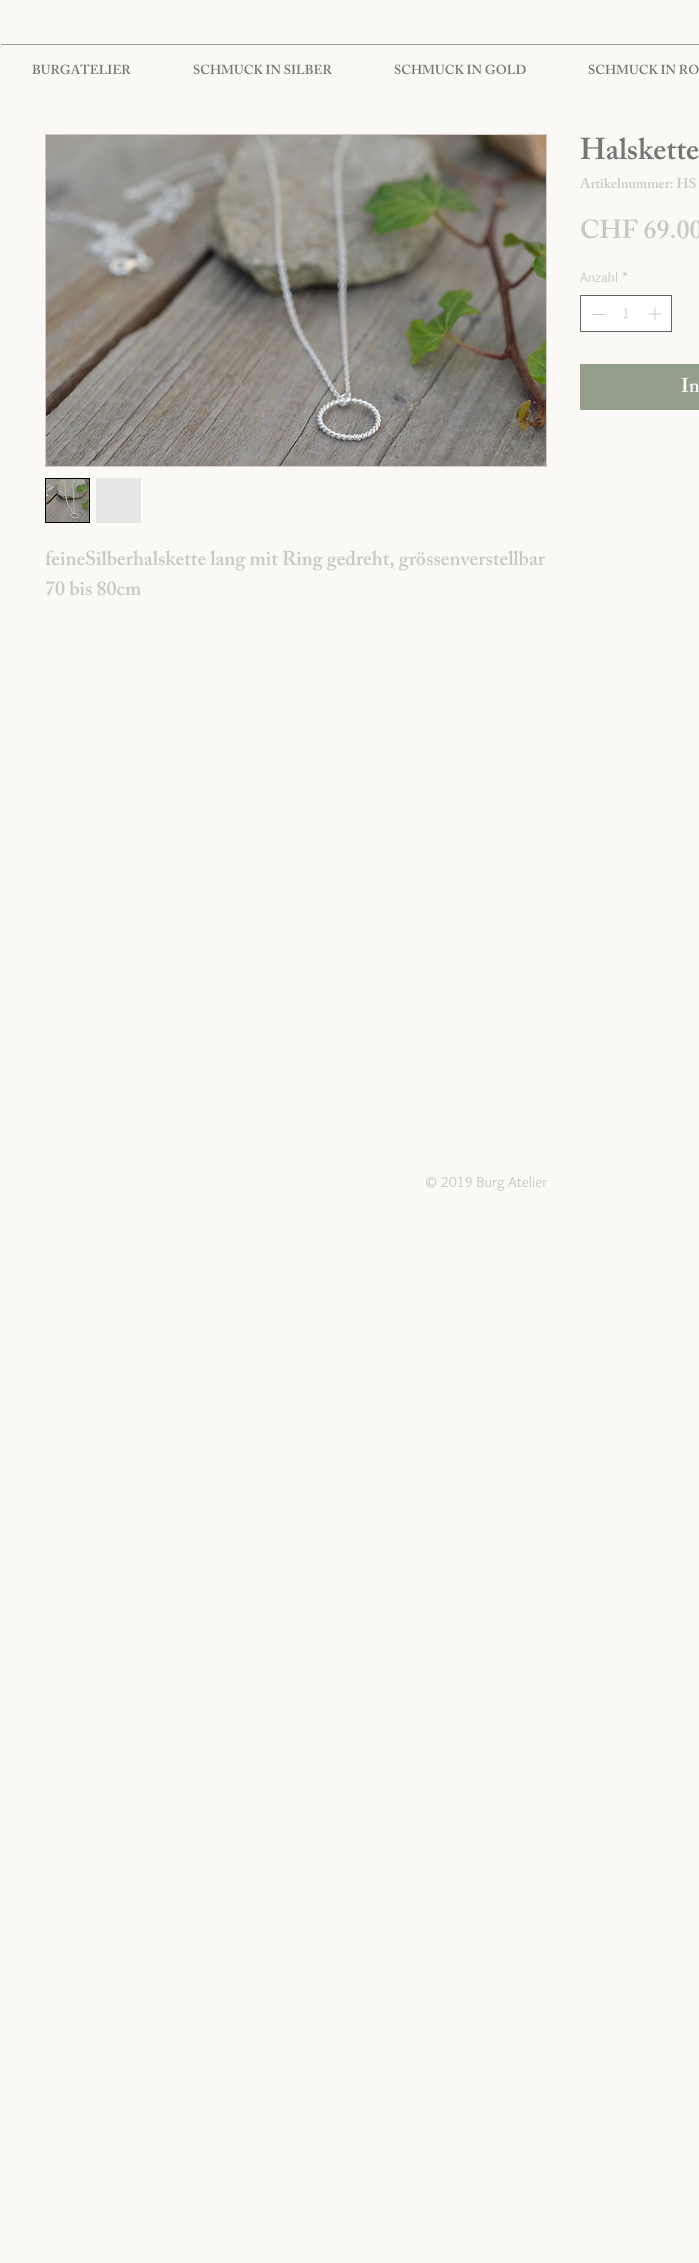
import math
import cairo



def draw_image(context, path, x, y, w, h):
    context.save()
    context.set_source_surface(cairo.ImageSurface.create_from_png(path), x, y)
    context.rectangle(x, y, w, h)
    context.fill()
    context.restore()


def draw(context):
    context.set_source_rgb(251 / 255, 249 / 255, 246 / 255)
    context.paint()
    context.set_source_rgb(147 / 255, 158 / 255, 140 / 255)
    context.rectangle(1, 44, 698, 1)
    context.fill()
    context.set_source_rgb(1, 1, 1)
    context.rectangle(580.5, 295.5, 91, 36)
    context.fill_preserve()
    context.set_source_rgb(102 / 255, 102 / 255, 102 / 255)
    context.set_line_width(1)
    context.stroke()
    context.set_source_rgb(199 / 255, 199 / 255, 199 / 255)
    context.rectangle(592, 314, 13, 1)
    context.fill()
    draw_image(context, "images/1.png", 648, 307, 14, 14)
    context.set_source_rgb(147 / 255, 158 / 255, 140 / 255)
    context.rectangle(580, 364, 119, 46)
    context.fill()
    context.rectangle(45.5, 134.5, 501, 332)
    context.set_source_rgb(212 / 255, 200 / 255, 200 / 255)
    context.stroke()
    draw_image(context, "images/2.png", 46, 135, 500, 331)
    context.rectangle(45.5, 478.5, 44, 44)
    context.set_source_rgb(0, 0, 0)
    context.stroke()
    draw_image(context, "images/3.png", 46, 479, 43, 43)
    context.set_source_rgb(232 / 255, 230 / 255, 230 / 255)
    context.rectangle(96, 478, 45, 45)
    context.fill()
    context.select_font_face("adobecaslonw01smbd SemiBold")
    context.set_font_size(13)
    context.set_source_rgb(117 / 255, 117 / 255, 117 / 255)
    context.move_to(32, 74)
    context.show_text("BURGATELIER")
    context.move_to(193, 74)
    context.show_text("SCHMUCK IN SILBER")
    context.move_to(394, 74)
    context.show_text("SCHMUCK IN GOLD")
    context.move_to(588, 74)
    context.show_text("SCHMUCK IN RO")
    context.set_font_size(30)
    context.move_to(580, 159)
    context.show_text("Halskette")
    context.set_font_size(14)
    context.set_source_rgb(199 / 255, 199 / 255, 199 / 255)
    context.move_to(580, 188)
    context.show_text("Artikelnummer: HS")
    context.set_font_size(26)
    context.move_to(580, 238)
    context.show_text("CHF 69.00")
    context.select_font_face("Overlock")
    context.set_font_size(14)
    context.move_to(580, 282)
    context.show_text("Anzahl")
    context.move_to(622, 282)
    context.show_text("*")
    context.move_to(622, 318)
    context.show_text("1")
    context.select_font_face("adobecaslonw01smbd SemiBold")
    context.set_font_size(20)
    context.set_source_rgb(251 / 255, 249 / 255, 246 / 255)
    context.move_to(681, 392)
    context.show_text("In")
    context.set_source_rgb(199 / 255, 199 / 255, 199 / 255)
    context.move_to(45, 565)
    context.show_text("feineSilberhalskette lang mit Ring gedreht, grössenverstellbar")
    context.move_to(45, 595)
    context.show_text("70 bis 80cm")
    context.select_font_face("Overlock")
    context.set_font_size(15)
    context.move_to(424, 1187)
    context.show_text("© 2019 Burg Atelier")


surface = cairo.ImageSurface(cairo.Format.RGB24, 699, 2263)
context = cairo.Context(surface)
options = cairo.FontOptions()
options.set_hint_metrics(cairo.HintMetrics.OFF)
options.set_hint_style(cairo.HintStyle.NONE)
context.set_font_options(options)
context.set_miter_limit(4)
draw(context)
surface.write_to_png("out.png")
